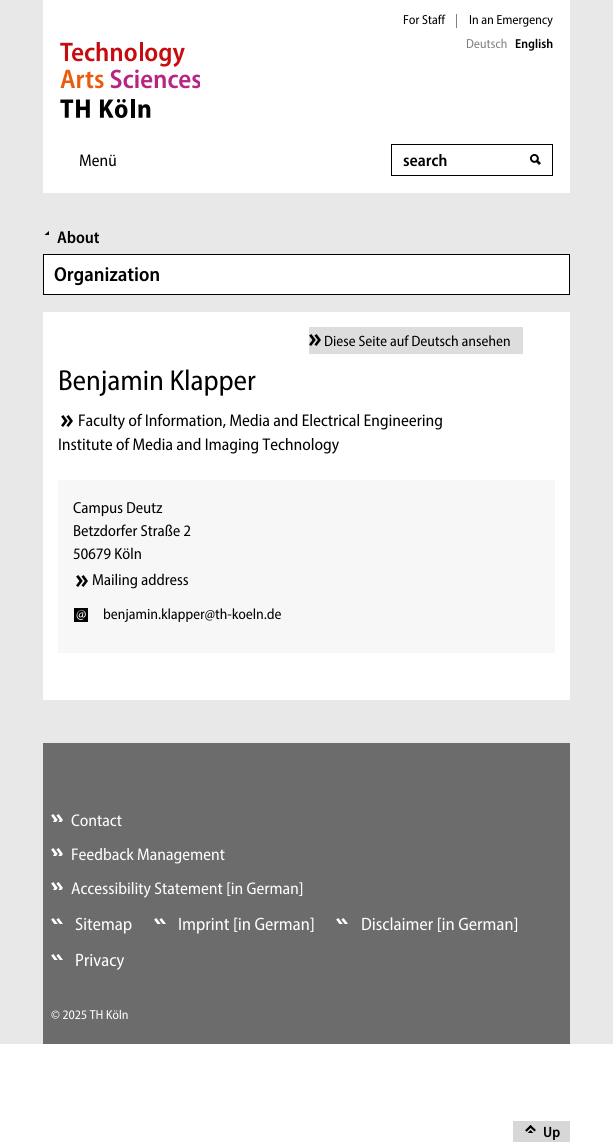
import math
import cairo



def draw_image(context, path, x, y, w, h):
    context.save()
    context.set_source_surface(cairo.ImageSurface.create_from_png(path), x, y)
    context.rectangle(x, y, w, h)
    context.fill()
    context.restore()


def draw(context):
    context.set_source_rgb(1, 1, 1)
    context.paint()
    context.set_source_rgb(232 / 255, 232 / 255, 232 / 255)
    context.rectangle(0, 0, 613, 1044)
    context.fill()
    context.set_source_rgb(1, 1, 1)
    context.rectangle(43, 0, 527, 193)
    context.fill()
    draw_image(context, "images/1.png", 403, 14, 43, 11)
    context.set_source_rgb(128 / 255, 128 / 255, 128 / 255)
    context.rectangle(456, 14, 1, 14)
    context.fill()
    draw_image(context, "images/2.png", 469, 15, 84, 12)
    draw_image(context, "images/3.png", 466, 38, 41, 11)
    draw_image(context, "images/4.png", 515, 38, 38, 13)
    draw_image(context, "images/5.png", 60, 42, 140, 76)
    draw_image(context, "images/6.png", 79, 154, 37, 13)
    context.rectangle(391.5, 144.5, 161, 31)
    context.set_source_rgb(0, 0, 0)
    context.set_line_width(1)
    context.stroke()
    draw_image(context, "images/7.png", 403, 154, 44, 13)
    draw_image(context, "images/8.png", 530, 154, 11, 11)
    draw_image(context, "images/9.png", 44, 231, 5, 4)
    draw_image(context, "images/10.png", 57, 231, 43, 13)
    context.set_source_rgb(1, 1, 1)
    context.rectangle(43.5, 254.5, 526, 40)
    context.fill_preserve()
    context.set_source_rgb(0, 0, 0)
    context.stroke()
    draw_image(context, "images/11.png", 54, 267, 105, 19)
    context.set_source_rgb(1, 1, 1)
    context.rectangle(43, 312, 527, 388)
    context.fill()
    context.set_source_rgb(221 / 255, 221 / 255, 221 / 255)
    context.rectangle(309, 327, 214, 27)
    context.fill()
    draw_image(context, "images/12.png", 309, 334, 12, 12)
    draw_image(context, "images/13.png", 325, 335, 185, 12)
    draw_image(context, "images/14.png", 60, 369, 196, 27)
    draw_image(context, "images/15.png", 61, 415, 12, 12)
    draw_image(context, "images/16.png", 79, 413, 363, 17)
    draw_image(context, "images/17.png", 59, 437, 280, 17)
    context.set_source_rgb(247 / 255, 247 / 255, 247 / 255)
    context.rectangle(58, 480, 497, 173)
    context.fill()
    draw_image(context, "images/18.png", 73, 502, 90, 15)
    draw_image(context, "images/19.png", 74, 524, 117, 13)
    draw_image(context, "images/20.png", 73, 547, 68, 13)
    draw_image(context, "images/21.png", 76, 575, 12, 12)
    draw_image(context, "images/22.png", 92, 573, 96, 16)
    draw_image(context, "images/23.png", 74, 608, 14, 14)
    draw_image(context, "images/24.png", 103, 608, 178, 14)
    context.set_source_rgb(108 / 255, 108 / 255, 108 / 255)
    context.rectangle(43, 743, 527, 301)
    context.fill()
    draw_image(context, "images/25.png", 51, 814, 12, 8)
    draw_image(context, "images/26.png", 71, 814, 51, 13)
    draw_image(context, "images/25.png", 51, 848, 12, 8)
    draw_image(context, "images/27.png", 72, 848, 153, 16)
    draw_image(context, "images/25.png", 51, 882, 12, 8)
    draw_image(context, "images/28.png", 71, 882, 232, 16)
    draw_image(context, "images/29.png", 51, 918, 12, 6)
    draw_image(context, "images/30.png", 75, 917, 57, 17)
    draw_image(context, "images/29.png", 154, 918, 12, 6)
    draw_image(context, "images/31.png", 179, 917, 135, 17)
    draw_image(context, "images/29.png", 336, 918, 12, 6)
    draw_image(context, "images/32.png", 362, 917, 156, 15)
    draw_image(context, "images/29.png", 51, 954, 12, 6)
    draw_image(context, "images/33.png", 76, 953, 49, 17)
    draw_image(context, "images/34.png", 51, 1009, 77, 11)
    context.set_source_rgb(215 / 255, 215 / 255, 215 / 255)
    context.rectangle(513, 1121, 57, 21)
    context.fill()
    draw_image(context, "images/35.png", 525, 1125, 11, 8)
    draw_image(context, "images/36.png", 544, 1126, 16, 14)


surface = cairo.ImageSurface(cairo.Format.RGB24, 613, 1146)
context = cairo.Context(surface)
options = cairo.FontOptions()
options.set_hint_metrics(cairo.HintMetrics.OFF)
options.set_hint_style(cairo.HintStyle.NONE)
context.set_font_options(options)
context.set_miter_limit(4)
draw(context)
surface.write_to_png("out.png")
